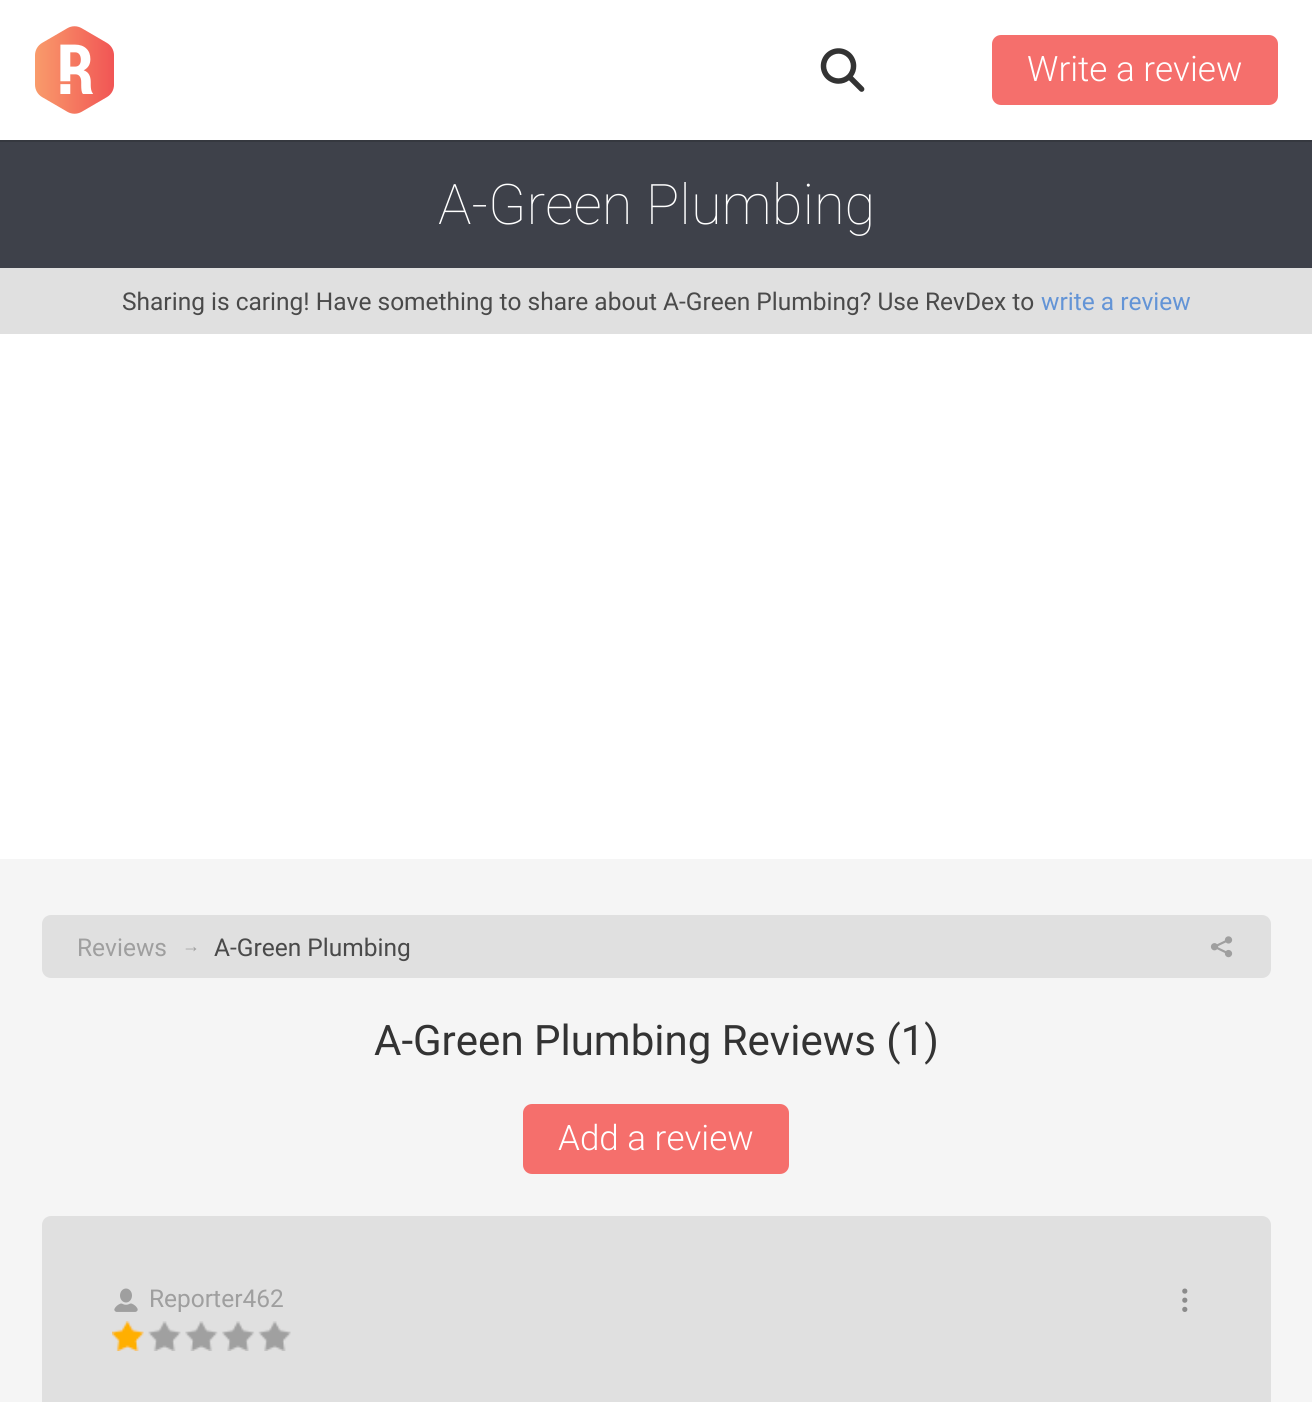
import math
import cairo



def rounded_rect(context, x, y, w, h, r):
    context.new_sub_path()
    for i, (u, v) in enumerate([(x + w - r, y + h - r), (x + r, y + h - r), (x + r, y + r), (x + w - r, y + r)]):
        context.arc(u, v, r, i * math.pi / 2, (i + 1) * math.pi / 2)
    context.close_path()


def draw_image(context, path, x, y, w, h):
    context.save()
    context.set_source_surface(cairo.ImageSurface.create_from_png(path), x, y)
    context.rectangle(x, y, w, h)
    context.fill()
    context.restore()


def draw(context):
    context.set_source_rgb(1, 1, 1)
    context.paint()
    draw_image(context, "images/1.png", 35, 26, 79, 88)
    draw_image(context, "images/2.png", 820, 48, 45, 44)
    context.set_source_rgb(245 / 255, 111 / 255, 108 / 255)
    rounded_rect(context, 992, 35, 286, 70, 9)
    context.fill()
    context.set_source_rgb(62 / 255, 65 / 255, 74 / 255)
    context.rectangle(0, 142, 1312, 126)
    context.fill()
    context.set_source_rgb(53 / 255, 56 / 255, 63 / 255)
    context.rectangle(0, 140, 1312, 2)
    context.fill()
    context.set_source_rgb(224 / 255, 224 / 255, 224 / 255)
    context.rectangle(0, 268, 1312, 66)
    context.fill()
    context.set_source_rgb(245 / 255, 245 / 255, 245 / 255)
    context.rectangle(0, 859, 1312, 543)
    context.fill()
    context.set_source_rgb(224 / 255, 224 / 255, 224 / 255)
    rounded_rect(context, 42, 915, 1229, 63, 9)
    context.fill()
    draw_image(context, "images/3.png", 1210, 936, 23, 22)
    context.set_source_rgb(245 / 255, 111 / 255, 108 / 255)
    rounded_rect(context, 523, 1104, 266, 70, 9)
    context.fill()
    context.set_source_rgb(224 / 255, 224 / 255, 224 / 255)
    rounded_rect(context, 42, 1216, 1229, 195, 9)
    context.fill()
    draw_image(context, "images/4.png", 114, 1288, 24, 24)
    draw_image(context, "images/5.png", 112, 1321, 179, 30)
    context.set_source_rgb(139 / 255, 139 / 255, 139 / 255)
    context.arc(1184.8, 1300.2, 2.6, 0, 2 * math.pi)
    context.fill()
    context.arc(1184.8, 1291.1, 2.6, 0, 2 * math.pi)
    context.fill()
    context.arc(1184.8, 1309.4, 2.6, 0, 2 * math.pi)
    context.fill()
    context.select_font_face("Roboto Light")
    context.set_font_size(35)
    context.set_source_rgb(1, 1, 1)
    context.move_to(1027, 81)
    context.show_text("Write a review")
    context.select_font_face("Roboto Thin")
    context.set_font_size(56)
    context.move_to(438, 224)
    context.show_text("A-Green Plumbing")
    context.select_font_face("Roboto")
    context.set_font_size(24.5)
    context.set_source_rgb(74 / 255, 74 / 255, 74 / 255)
    context.move_to(122, 310)
    context.show_text("Sharing is caring! Have something to share about A-Green Plumbing? Use RevDex to")
    context.set_source_rgb(99 / 255, 148 / 255, 214 / 255)
    context.move_to(1041, 310)
    context.show_text("write a review")
    context.set_source_rgb(159 / 255, 159 / 255, 159 / 255)
    context.move_to(77, 956)
    context.show_text("Reviews")
    context.select_font_face("Liberation Sans")
    context.set_font_size(18)
    context.move_to(182, 952)
    context.show_text("→")
    context.select_font_face("Roboto")
    context.set_font_size(24.5)
    context.set_source_rgb(74 / 255, 74 / 255, 74 / 255)
    context.move_to(214, 956)
    context.show_text("A-Green Plumbing")
    context.set_font_size(42)
    context.set_source_rgb(51 / 255, 51 / 255, 51 / 255)
    context.move_to(374, 1055)
    context.show_text("A-Green Plumbing Reviews (1)")
    context.select_font_face("Roboto Light")
    context.set_font_size(35)
    context.set_source_rgb(1, 1, 1)
    context.move_to(558, 1150)
    context.show_text("Add a review")
    context.select_font_face("Roboto")
    context.set_font_size(24.5)
    context.set_source_rgb(159 / 255, 159 / 255, 159 / 255)
    context.move_to(149, 1307)
    context.show_text("Reporter462")


surface = cairo.ImageSurface(cairo.Format.RGB24, 1312, 1402)
context = cairo.Context(surface)
options = cairo.FontOptions()
options.set_hint_metrics(cairo.HintMetrics.OFF)
options.set_hint_style(cairo.HintStyle.NONE)
context.set_font_options(options)
context.set_miter_limit(4)
draw(context)
surface.write_to_png("out.png")
